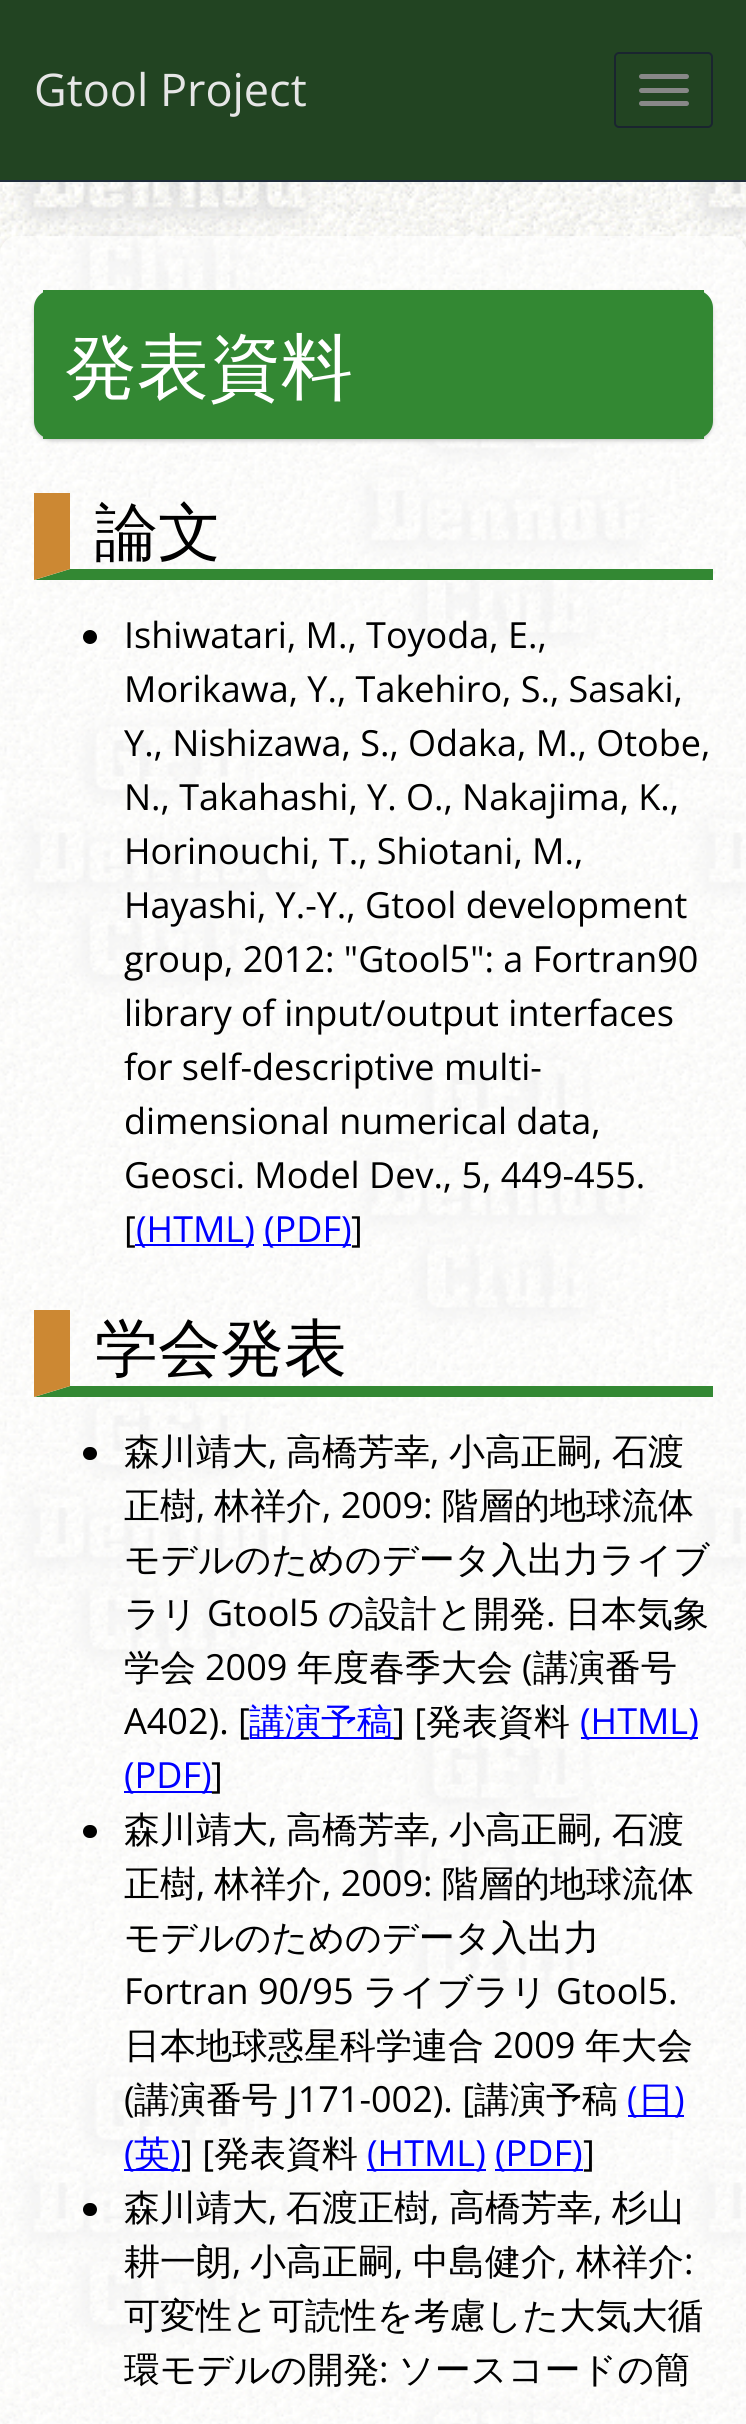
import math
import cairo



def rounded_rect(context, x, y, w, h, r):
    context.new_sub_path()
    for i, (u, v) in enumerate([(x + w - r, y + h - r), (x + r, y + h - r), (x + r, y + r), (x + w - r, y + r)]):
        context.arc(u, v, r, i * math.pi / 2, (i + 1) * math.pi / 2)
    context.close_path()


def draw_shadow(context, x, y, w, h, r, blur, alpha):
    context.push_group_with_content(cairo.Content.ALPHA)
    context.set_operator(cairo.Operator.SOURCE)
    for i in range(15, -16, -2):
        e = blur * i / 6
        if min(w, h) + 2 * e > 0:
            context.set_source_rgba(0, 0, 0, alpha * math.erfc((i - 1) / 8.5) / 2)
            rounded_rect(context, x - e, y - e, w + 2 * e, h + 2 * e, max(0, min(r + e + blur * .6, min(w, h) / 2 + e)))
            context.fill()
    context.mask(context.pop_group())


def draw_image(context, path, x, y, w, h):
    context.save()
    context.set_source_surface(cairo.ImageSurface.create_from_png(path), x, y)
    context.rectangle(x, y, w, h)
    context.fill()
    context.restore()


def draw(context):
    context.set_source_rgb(1, 1, 1)
    context.paint()
    draw_image(context, "images/1.png", 0, 182, 746, 2242)
    context.set_source_rgb(34 / 255, 68 / 255, 34 / 255)
    context.rectangle(0, 0, 746, 180)
    context.fill()
    context.set_source_rgb(32 / 255, 45 / 255, 59 / 255)
    context.rectangle(0, 180, 746, 2)
    context.fill()
    rounded_rect(context, 615, 53, 97, 74, 4)
    context.set_source_rgb(26 / 255, 37 / 255, 47 / 255)
    context.stroke()
    context.set_source_rgb(136 / 255, 136 / 255, 136 / 255)
    rounded_rect(context, 639, 74, 50, 5, 2.5)
    context.fill()
    rounded_rect(context, 639, 88, 50, 5, 2.5)
    context.fill()
    rounded_rect(context, 639, 101, 50, 5, 2.5)
    context.fill()
    context.save()
    context.set_fill_rule(cairo.FillRule.EVEN_ODD)
    context.new_path()
    context.move_to(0, 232)
    context.line_to(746, 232)
    context.line_to(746, 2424)
    context.line_to(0, 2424)
    context.close_path()
    context.move_to(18, 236)
    context.line_to(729, 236)
    context.curve_to(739, 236, 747, 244, 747, 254)
    context.line_to(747, 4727)
    context.curve_to(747, 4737, 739, 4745, 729, 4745)
    context.line_to(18, 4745)
    context.curve_to(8, 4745, 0, 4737, 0, 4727)
    context.line_to(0, 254)
    context.curve_to(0, 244, 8, 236, 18, 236)
    context.close_path()
    context.clip()
    context.set_source_rgb(204 / 255, 204 / 255, 204 / 255)
    draw_shadow(context, 0, 239, 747, 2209, 18, 2, 1)
    context.restore()
    context.set_source_rgba(1, 1, 1, 0.6)
    rounded_rect(context, 0, 236, 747, 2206, 18)
    context.fill()
    context.set_source_rgb(204 / 255, 204 / 255, 204 / 255)
    draw_shadow(context, 34, 293, 679, 148, 18, 2, 1)
    context.set_source_rgb(51 / 255, 136 / 255, 51 / 255)
    rounded_rect(context, 34, 290, 679, 149, 18)
    context.fill()
    context.rectangle(43, 290, 661, 3)
    context.fill()
    context.rectangle(43, 436, 661, 3)
    context.fill()
    context.new_path()
    context.move_to(713, 580)
    context.line_to(34, 580)
    context.line_to(70, 569)
    context.line_to(713, 569)
    context.close_path()
    context.fill()
    context.set_source_rgb(204 / 255, 136 / 255, 51 / 255)
    context.new_path()
    context.move_to(34, 580)
    context.line_to(34, 493)
    context.line_to(70, 493)
    context.line_to(70, 569)
    context.close_path()
    context.fill()
    context.set_source_rgb(0, 0, 0)
    context.arc(90, 637, 7, 0, 2 * math.pi)
    context.fill()
    context.set_source_rgb(0, 0, 1)
    context.rectangle(135, 1244, 119, 2)
    context.fill()
    context.rectangle(263, 1244, 88, 2)
    context.fill()
    context.set_source_rgb(51 / 255, 136 / 255, 51 / 255)
    context.new_path()
    context.move_to(713, 1397)
    context.line_to(34, 1397)
    context.line_to(70, 1386)
    context.line_to(713, 1386)
    context.close_path()
    context.fill()
    context.set_source_rgb(204 / 255, 136 / 255, 51 / 255)
    context.new_path()
    context.move_to(34, 1397)
    context.line_to(34, 1310)
    context.line_to(70, 1310)
    context.line_to(70, 1386)
    context.close_path()
    context.fill()
    context.set_source_rgb(0, 0, 0)
    rounded_rect(context, 83, 1447, 14, 13, 6.5)
    context.fill()
    context.set_source_rgb(0, 0, 1)
    context.rectangle(250, 1737, 144, 2)
    context.fill()
    context.rectangle(581, 1737, 117, 2)
    context.fill()
    context.rectangle(124, 1791, 88, 2)
    context.fill()
    context.set_source_rgb(0, 0, 0)
    rounded_rect(context, 83, 1825, 14, 13, 6.5)
    context.fill()
    context.set_source_rgb(0, 0, 1)
    context.rectangle(628, 2115, 56, 2)
    context.fill()
    context.rectangle(124, 2169, 56, 2)
    context.fill()
    context.rectangle(367, 2169, 119, 2)
    context.fill()
    context.rectangle(495, 2169, 88, 2)
    context.fill()
    context.set_source_rgb(0, 0, 0)
    rounded_rect(context, 83, 2203, 14, 13, 6.5)
    context.fill()
    context.select_font_face("Open Sans")
    context.set_font_size(45)
    context.set_source_rgb(230 / 255, 230 / 255, 230 / 255)
    context.move_to(34, 106)
    context.show_text("Gtool Project")
    context.select_font_face("WenQuanYi Zen Hei Medium")
    context.set_font_size(72)
    context.set_source_rgb(1, 1, 1)
    context.move_to(65, 392)
    context.show_text("発表資料")
    context.set_font_size(63)
    context.set_source_rgb(0, 0, 0)
    context.move_to(95, 554)
    context.show_text("論文")
    context.select_font_face("Open Sans")
    context.set_font_size(36)
    context.move_to(124, 648)
    context.show_text("Ishiwatari, M., Toyoda, E.,")
    context.move_to(124, 702)
    context.show_text("Morikawa, Y., Takehiro, S., Sasaki,")
    context.move_to(124, 756)
    context.show_text("Y., Nishizawa, S., Odaka, M., Otobe,")
    context.move_to(124, 810)
    context.show_text("N., Takahashi, Y. O., Nakajima, K.,")
    context.move_to(124, 864)
    context.show_text("Horinouchi, T., Shiotani, M.,")
    context.move_to(124, 918)
    context.show_text("Hayashi, Y.-Y., Gtool development")
    context.move_to(124, 972)
    context.show_text("group, 2012: \"Gtool5\": a Fortran90")
    context.move_to(124, 1026)
    context.show_text("library of input/output interfaces")
    context.move_to(124, 1080)
    context.show_text("for self-descriptive multi-")
    context.move_to(124, 1134)
    context.show_text("dimensional numerical data,")
    context.move_to(124, 1188)
    context.show_text("Geosci. Model Dev., 5, 449-455.")
    context.move_to(124, 1242)
    context.show_text("[")
    context.set_source_rgb(0, 0, 1)
    context.move_to(136, 1242)
    context.show_text("(HTML)")
    context.move_to(264, 1242)
    context.show_text("(PDF)")
    context.set_source_rgb(0, 0, 0)
    context.move_to(351, 1242)
    context.show_text("]")
    context.select_font_face("WenQuanYi Zen Hei Medium")
    context.set_font_size(63)
    context.move_to(95, 1370)
    context.show_text("学会発表")
    context.set_font_size(36)
    context.move_to(124, 1464)
    context.show_text("森川靖大")
    context.move_to(286, 1464)
    context.show_text("高橋芳幸")
    context.move_to(449, 1464)
    context.show_text("小高正嗣")
    context.move_to(612, 1464)
    context.show_text("石渡")
    context.select_font_face("Open Sans")
    context.move_to(268, 1464)
    context.show_text(",")
    context.move_to(430, 1464)
    context.show_text(",")
    context.move_to(593, 1464)
    context.show_text(",")
    context.select_font_face("WenQuanYi Zen Hei Medium")
    context.move_to(124, 1518)
    context.show_text("正樹")
    context.select_font_face("Open Sans")
    context.move_to(196, 1518)
    context.show_text(",")
    context.select_font_face("WenQuanYi Zen Hei Medium")
    context.move_to(214, 1518)
    context.show_text("林祥介")
    context.select_font_face("Open Sans")
    context.move_to(322, 1518)
    context.show_text(", 2009:")
    context.select_font_face("WenQuanYi Zen Hei Medium")
    context.move_to(442, 1518)
    context.show_text("階層的地球流体")
    context.move_to(124, 1572)
    context.show_text("モデルのためのデータ入出力ライブ")
    context.move_to(124, 1626)
    context.show_text("ラリ")
    context.select_font_face("Open Sans")
    context.move_to(207, 1626)
    context.show_text("Gtool5")
    context.select_font_face("WenQuanYi Zen Hei Medium")
    context.move_to(328, 1626)
    context.show_text("の設計と開発")
    context.select_font_face("Open Sans")
    context.move_to(546, 1626)
    context.show_text(".")
    context.select_font_face("WenQuanYi Zen Hei Medium")
    context.move_to(565, 1626)
    context.show_text("日本気象")
    context.move_to(124, 1680)
    context.show_text("学会")
    context.select_font_face("Open Sans")
    context.move_to(205, 1680)
    context.show_text("2009")
    context.select_font_face("WenQuanYi Zen Hei Medium")
    context.move_to(297, 1680)
    context.show_text("年度春季大会")
    context.select_font_face("Open Sans")
    context.move_to(522, 1680)
    context.show_text("(")
    context.select_font_face("WenQuanYi Zen Hei Medium")
    context.move_to(533, 1680)
    context.show_text("講演番号")
    context.select_font_face("Open Sans")
    context.move_to(124, 1734)
    context.show_text("A402). [")
    context.select_font_face("WenQuanYi Zen Hei Medium")
    context.set_source_rgb(0, 0, 1)
    context.move_to(249, 1734)
    context.show_text("講演予稿")
    context.select_font_face("Open Sans")
    context.set_source_rgb(0, 0, 0)
    context.move_to(393, 1734)
    context.show_text("] [")
    context.select_font_face("WenQuanYi Zen Hei Medium")
    context.move_to(426, 1734)
    context.show_text("発表資料")
    context.select_font_face("Open Sans")
    context.set_source_rgb(0, 0, 1)
    context.move_to(580, 1734)
    context.show_text("(HTML)")
    context.move_to(124, 1788)
    context.show_text("(PDF)")
    context.set_source_rgb(0, 0, 0)
    context.move_to(211, 1788)
    context.show_text("]")
    context.select_font_face("WenQuanYi Zen Hei Medium")
    context.move_to(124, 1842)
    context.show_text("森川靖大")
    context.move_to(286, 1842)
    context.show_text("高橋芳幸")
    context.move_to(449, 1842)
    context.show_text("小高正嗣")
    context.move_to(612, 1842)
    context.show_text("石渡")
    context.select_font_face("Open Sans")
    context.move_to(268, 1842)
    context.show_text(",")
    context.move_to(430, 1842)
    context.show_text(",")
    context.move_to(593, 1842)
    context.show_text(",")
    context.select_font_face("WenQuanYi Zen Hei Medium")
    context.move_to(124, 1896)
    context.show_text("正樹")
    context.select_font_face("Open Sans")
    context.move_to(196, 1896)
    context.show_text(",")
    context.select_font_face("WenQuanYi Zen Hei Medium")
    context.move_to(214, 1896)
    context.show_text("林祥介")
    context.select_font_face("Open Sans")
    context.move_to(322, 1896)
    context.show_text(", 2009:")
    context.select_font_face("WenQuanYi Zen Hei Medium")
    context.move_to(442, 1896)
    context.show_text("階層的地球流体")
    context.move_to(124, 1950)
    context.show_text("モデルのためのデータ入出力")
    context.select_font_face("Open Sans")
    context.move_to(124, 2004)
    context.show_text("Fortran 90/95")
    context.select_font_face("WenQuanYi Zen Hei Medium")
    context.move_to(363, 2004)
    context.show_text("ライブラリ")
    context.select_font_face("Open Sans")
    context.move_to(556, 2004)
    context.show_text("Gtool5.")
    context.select_font_face("WenQuanYi Zen Hei Medium")
    context.move_to(124, 2058)
    context.show_text("日本地球惑星科学連合")
    context.select_font_face("Open Sans")
    context.move_to(493, 2058)
    context.show_text("2009")
    context.select_font_face("WenQuanYi Zen Hei Medium")
    context.move_to(585, 2058)
    context.show_text("年大会")
    context.select_font_face("Open Sans")
    context.move_to(124, 2112)
    context.show_text("(")
    context.select_font_face("WenQuanYi Zen Hei Medium")
    context.move_to(134, 2112)
    context.show_text("講演番号")
    context.select_font_face("Open Sans")
    context.move_to(288, 2112)
    context.show_text("J171-002). [")
    context.select_font_face("WenQuanYi Zen Hei Medium")
    context.move_to(474, 2112)
    context.show_text("講演予稿")
    context.select_font_face("Open Sans")
    context.set_source_rgb(0, 0, 1)
    context.move_to(627, 2112)
    context.show_text("(")
    context.select_font_face("WenQuanYi Zen Hei Medium")
    context.move_to(638, 2112)
    context.show_text("日")
    context.select_font_face("Open Sans")
    context.move_to(674, 2112)
    context.show_text(")")
    context.move_to(124, 2166)
    context.show_text("(")
    context.select_font_face("WenQuanYi Zen Hei Medium")
    context.move_to(134, 2166)
    context.show_text("英")
    context.select_font_face("Open Sans")
    context.move_to(170, 2166)
    context.show_text(")")
    context.set_source_rgb(0, 0, 0)
    context.move_to(181, 2166)
    context.show_text("] [")
    context.select_font_face("WenQuanYi Zen Hei Medium")
    context.move_to(214, 2166)
    context.show_text("発表資料")
    context.select_font_face("Open Sans")
    context.set_source_rgb(0, 0, 1)
    context.move_to(367, 2166)
    context.show_text("(HTML)")
    context.move_to(495, 2166)
    context.show_text("(PDF)")
    context.set_source_rgb(0, 0, 0)
    context.move_to(583, 2166)
    context.show_text("]")
    context.select_font_face("WenQuanYi Zen Hei Medium")
    context.move_to(124, 2220)
    context.show_text("森川靖大")
    context.move_to(286, 2220)
    context.show_text("石渡正樹")
    context.move_to(449, 2220)
    context.show_text("高橋芳幸")
    context.move_to(612, 2220)
    context.show_text("杉山")
    context.select_font_face("Open Sans")
    context.move_to(268, 2220)
    context.show_text(",")
    context.move_to(430, 2220)
    context.show_text(",")
    context.move_to(593, 2220)
    context.show_text(",")
    context.select_font_face("WenQuanYi Zen Hei Medium")
    context.move_to(124, 2274)
    context.show_text("耕一朗")
    context.select_font_face("Open Sans")
    context.move_to(232, 2274)
    context.show_text(",")
    context.select_font_face("WenQuanYi Zen Hei Medium")
    context.move_to(250, 2274)
    context.show_text("小高正嗣")
    context.select_font_face("Open Sans")
    context.move_to(394, 2274)
    context.show_text(",")
    context.select_font_face("WenQuanYi Zen Hei Medium")
    context.move_to(413, 2274)
    context.show_text("中島健介")
    context.select_font_face("Open Sans")
    context.move_to(557, 2274)
    context.show_text(",")
    context.select_font_face("WenQuanYi Zen Hei Medium")
    context.move_to(576, 2274)
    context.show_text("林祥介")
    context.select_font_face("Open Sans")
    context.move_to(684, 2274)
    context.show_text(":")
    context.select_font_face("WenQuanYi Zen Hei Medium")
    context.move_to(124, 2328)
    context.show_text("可変性と可読性を考慮した大気大循")
    context.move_to(124, 2382)
    context.show_text("環モデルの開発")
    context.select_font_face("Open Sans")
    context.move_to(379, 2382)
    context.show_text(":")
    context.select_font_face("WenQuanYi Zen Hei Medium")
    context.move_to(398, 2382)
    context.show_text("ソースコードの簡")


surface = cairo.ImageSurface(cairo.Format.RGB24, 746, 2424)
context = cairo.Context(surface)
options = cairo.FontOptions()
options.set_hint_metrics(cairo.HintMetrics.OFF)
options.set_hint_style(cairo.HintStyle.NONE)
context.set_font_options(options)
context.set_miter_limit(4)
draw(context)
surface.write_to_png("out.png")
